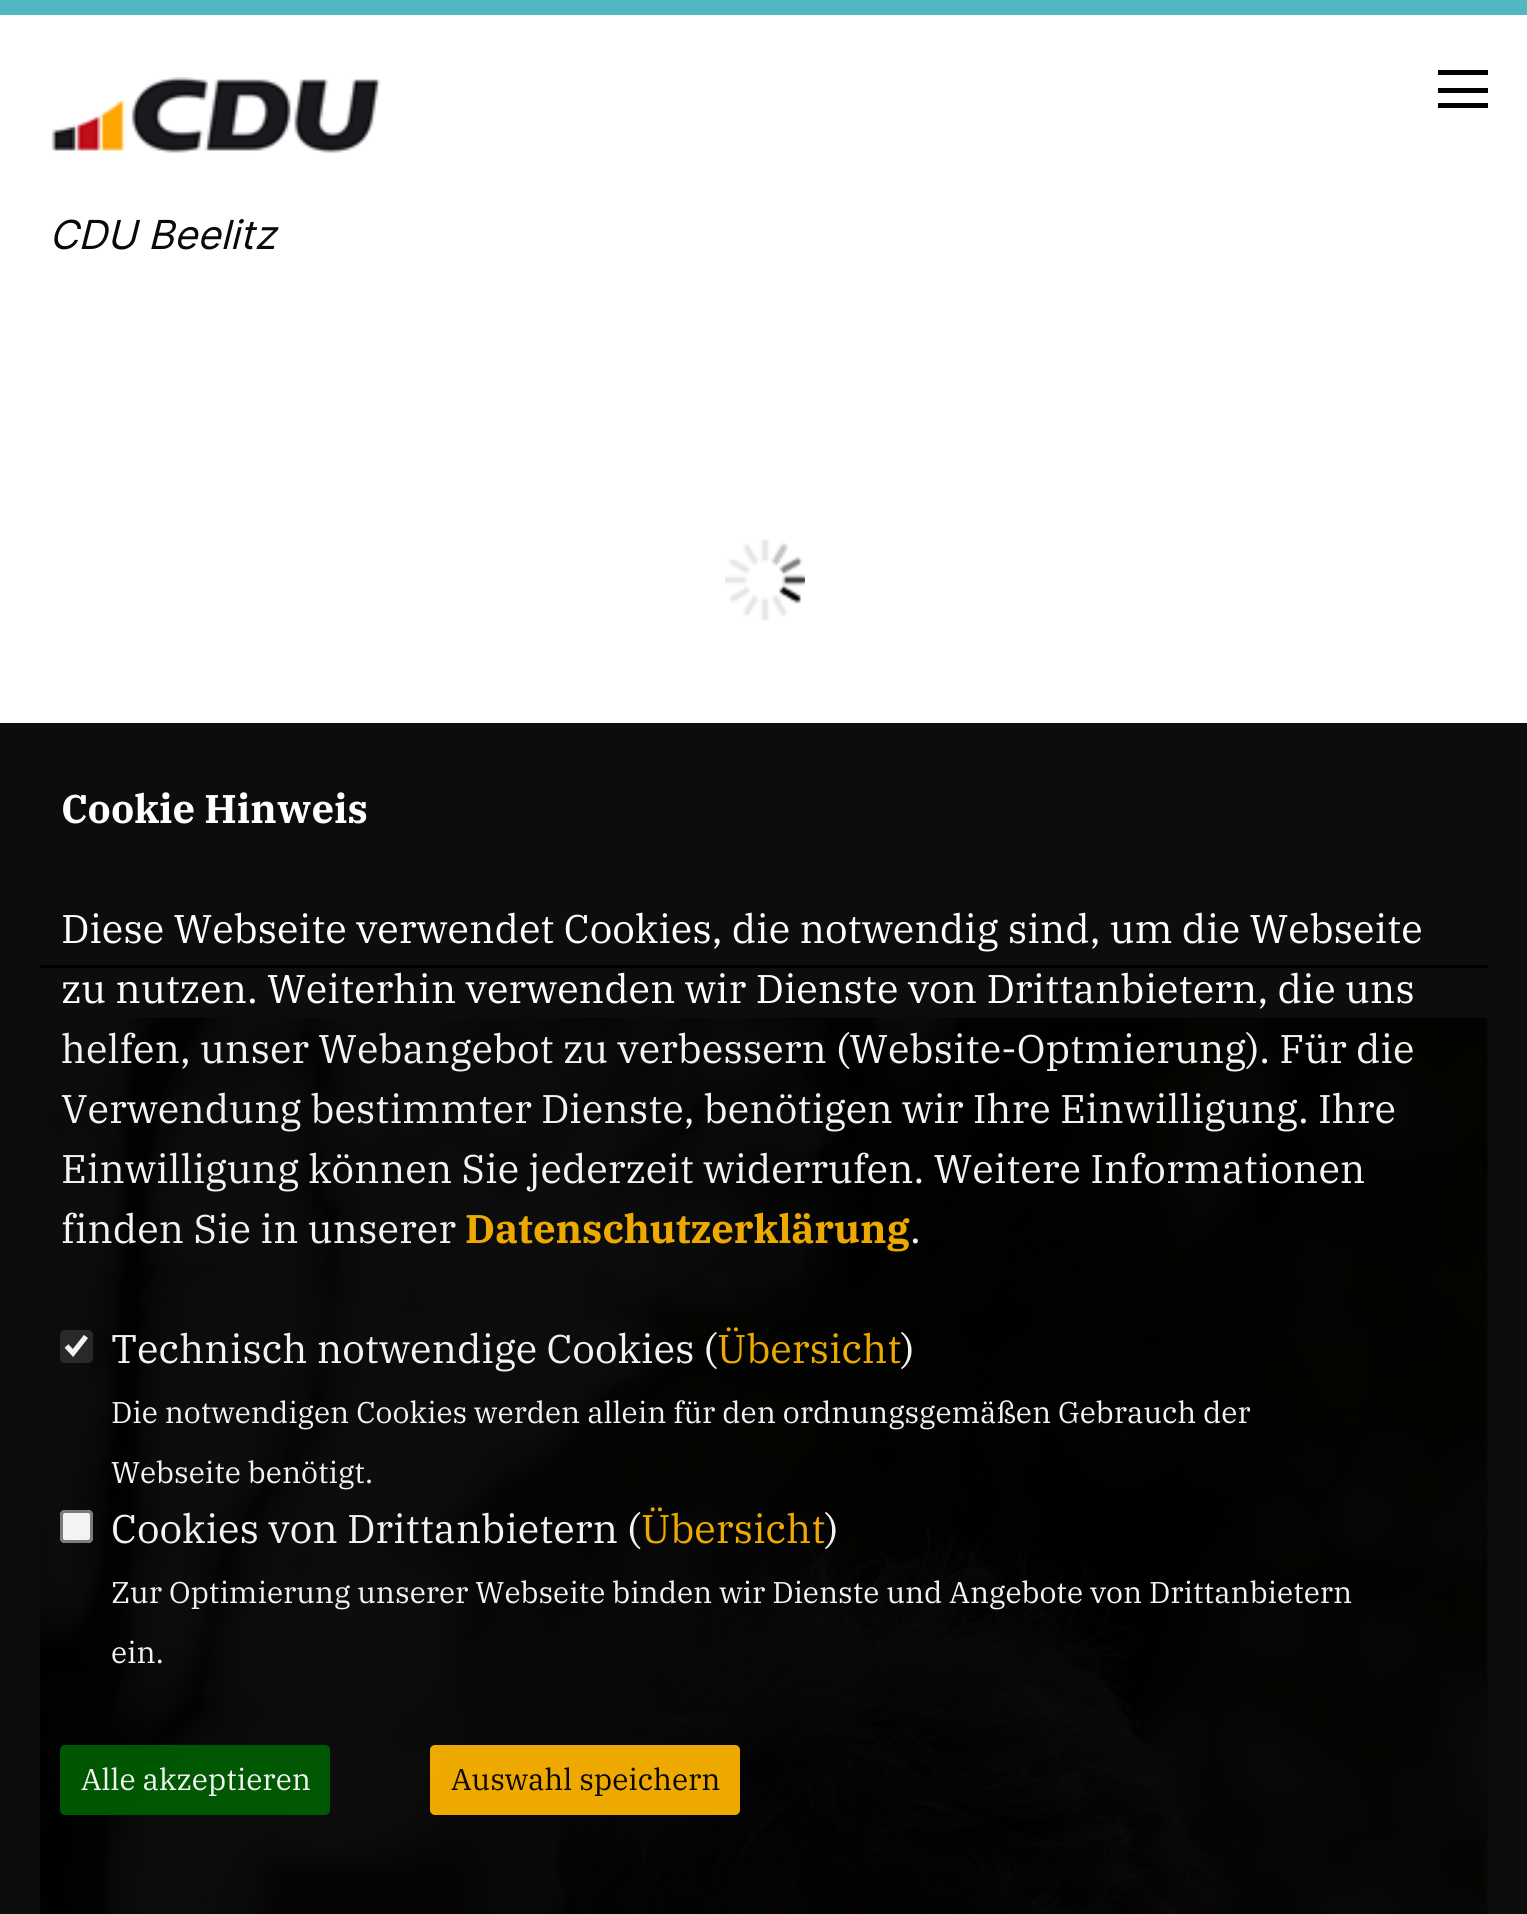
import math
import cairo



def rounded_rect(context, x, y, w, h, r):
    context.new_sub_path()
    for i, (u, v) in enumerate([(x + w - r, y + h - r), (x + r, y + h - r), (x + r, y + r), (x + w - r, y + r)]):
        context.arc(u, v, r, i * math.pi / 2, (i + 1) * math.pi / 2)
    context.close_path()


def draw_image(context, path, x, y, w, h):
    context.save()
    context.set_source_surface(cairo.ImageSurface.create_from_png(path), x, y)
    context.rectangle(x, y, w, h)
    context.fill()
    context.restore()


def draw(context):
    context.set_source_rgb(1, 1, 1)
    context.paint()
    context.set_source_rgb(13 / 255, 13 / 255, 13 / 255)
    context.rectangle(0, 723, 1527, 1191)
    context.fill()
    context.set_source_rgb(82 / 255, 183 / 255, 193 / 255)
    context.rectangle(0, 0, 1527, 15)
    context.fill()
    context.set_source_rgb(0, 0, 0)
    context.rectangle(1438, 70, 50, 5)
    context.fill()
    context.rectangle(1438, 88, 50, 5)
    context.fill()
    context.rectangle(1438, 103, 50, 5)
    context.fill()
    draw_image(context, "images/1.png", 51, 77, 330, 76)
    context.rectangle(40, 965, 1448, 3)
    context.fill()
    draw_image(context, "images/2.png", 725, 539, 80, 82)
    draw_image(context, "images/3.png", 40, 1017, 1448, 897)
    context.set_source_rgba(118 / 255, 118 / 255, 118 / 255, 0.28)
    rounded_rect(context, 60, 1330, 33, 33, 5)
    context.fill()
    context.new_path()
    context.move_to(66.5, 1346)
    context.line_to(73, 1353)
    context.line_to(86, 1336.5)
    context.set_source_rgb(244 / 255, 244 / 255, 244 / 255)
    context.set_line_width(5.2)
    context.stroke()
    context.set_source_rgba(1, 1, 1, 0.95)
    rounded_rect(context, 60, 1510, 33, 33, 5)
    context.fill()
    rounded_rect(context, 61.5, 1511.5, 30, 30, 3.5)
    context.set_source_rgba(118 / 255, 118 / 255, 118 / 255, 0.95)
    context.set_line_width(3)
    context.stroke()
    context.set_source_rgba(0, 92 / 255, 2 / 255, 0.95)
    rounded_rect(context, 60, 1745, 270, 70, 5)
    context.fill()
    context.set_source_rgba(250 / 255, 178 / 255, 0, 0.95)
    rounded_rect(context, 430, 1745, 310, 70, 5)
    context.fill()
    context.select_font_face("Inter", cairo.FontSlant.ITALIC)
    context.set_font_size(40)
    context.set_source_rgb(11 / 255, 10 / 255, 10 / 255)
    context.move_to(49, 249)
    context.show_text("CDU Beelitz")
    context.select_font_face("IBM Plex Serif", cairo.FontSlant.NORMAL, cairo.FontWeight.BOLD)
    context.set_source_rgb(1, 1, 1)
    context.move_to(61, 823)
    context.show_text("Cookie Hinweis")
    context.select_font_face("IBM Plex Serif")
    context.move_to(61, 943)
    context.show_text("Diese Webseite verwendet Cookies, die notwendig sind, um die Webseite")
    context.move_to(61, 1003)
    context.show_text("zu nutzen. Weiterhin verwenden wir Dienste von Drittanbietern, die uns")
    context.set_source_rgb(243 / 255, 243 / 255, 243 / 255)
    context.move_to(61, 1063)
    context.show_text("helfen, unser Webangebot zu verbessern (Website-Optmierung). Für die")
    context.move_to(61, 1123)
    context.show_text("Verwendung bestimmter Dienste, benötigen wir Ihre Einwilligung. Ihre")
    context.move_to(61, 1183)
    context.show_text("Einwilligung können Sie jederzeit widerrufen. Weitere Informationen")
    context.move_to(61, 1243)
    context.show_text("finden Sie in unserer")
    context.select_font_face("IBM Plex Serif", cairo.FontSlant.NORMAL, cairo.FontWeight.BOLD)
    context.set_source_rgb(238 / 255, 169 / 255, 0)
    context.move_to(465, 1243)
    context.show_text("Datenschutzerklärung")
    context.select_font_face("IBM Plex Serif")
    context.set_source_rgb(243 / 255, 243 / 255, 243 / 255)
    context.move_to(910, 1243)
    context.show_text(".")
    context.move_to(111, 1363)
    context.show_text("Technisch notwendige Cookies (")
    context.set_source_rgb(238 / 255, 169 / 255, 0)
    context.move_to(717, 1363)
    context.show_text("Übersicht")
    context.set_source_rgb(243 / 255, 243 / 255, 243 / 255)
    context.move_to(901, 1363)
    context.show_text(")")
    context.set_font_size(30)
    context.move_to(111, 1423)
    context.show_text("Die notwendigen Cookies werden allein für den ordnungsgemäßen Gebrauch der")
    context.move_to(111, 1483)
    context.show_text("Webseite benötigt.")
    context.set_font_size(40)
    context.move_to(111, 1543)
    context.show_text("Cookies von Drittanbietern (")
    context.set_source_rgb(238 / 255, 169 / 255, 0)
    context.move_to(641, 1543)
    context.show_text("Übersicht")
    context.set_source_rgb(243 / 255, 243 / 255, 243 / 255)
    context.move_to(825, 1543)
    context.show_text(")")
    context.set_font_size(30)
    context.move_to(111, 1603)
    context.show_text("Zur Optimierung unserer Webseite binden wir Dienste und Angebote von Drittanbietern")
    context.move_to(111, 1663)
    context.show_text("ein.")
    context.move_to(81, 1790)
    context.show_text("Alle akzeptieren")
    context.set_source_rgb(12 / 255, 8 / 255, 0)
    context.move_to(451, 1790)
    context.show_text("Auswahl speichern")


surface = cairo.ImageSurface(cairo.Format.RGB24, 1527, 1914)
context = cairo.Context(surface)
options = cairo.FontOptions()
options.set_hint_metrics(cairo.HintMetrics.OFF)
options.set_hint_style(cairo.HintStyle.NONE)
context.set_font_options(options)
context.set_miter_limit(4)
draw(context)
surface.write_to_png("out.png")
